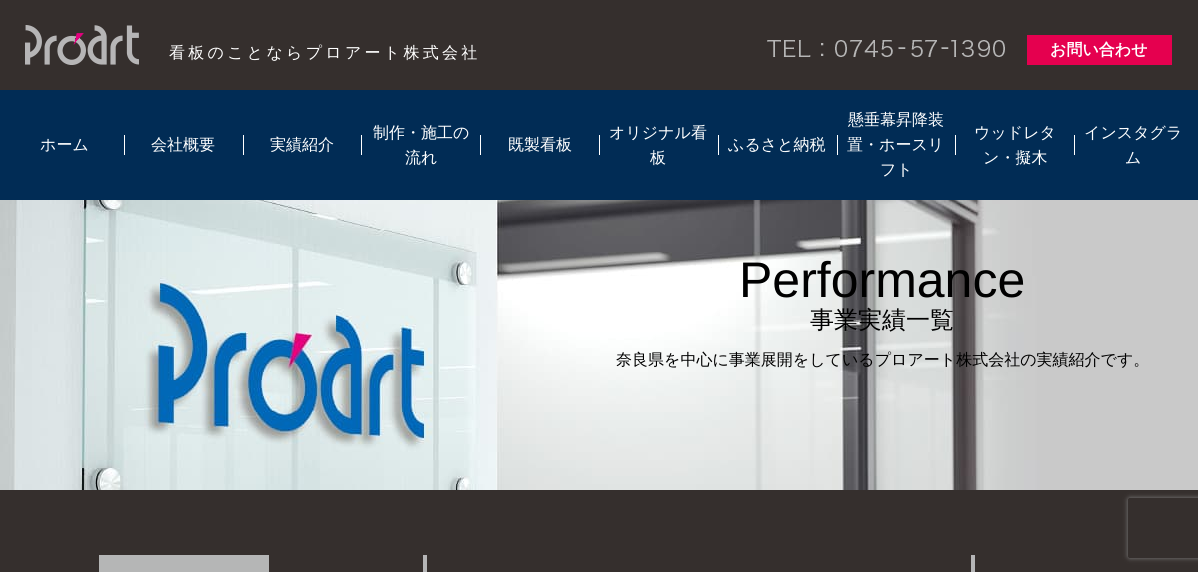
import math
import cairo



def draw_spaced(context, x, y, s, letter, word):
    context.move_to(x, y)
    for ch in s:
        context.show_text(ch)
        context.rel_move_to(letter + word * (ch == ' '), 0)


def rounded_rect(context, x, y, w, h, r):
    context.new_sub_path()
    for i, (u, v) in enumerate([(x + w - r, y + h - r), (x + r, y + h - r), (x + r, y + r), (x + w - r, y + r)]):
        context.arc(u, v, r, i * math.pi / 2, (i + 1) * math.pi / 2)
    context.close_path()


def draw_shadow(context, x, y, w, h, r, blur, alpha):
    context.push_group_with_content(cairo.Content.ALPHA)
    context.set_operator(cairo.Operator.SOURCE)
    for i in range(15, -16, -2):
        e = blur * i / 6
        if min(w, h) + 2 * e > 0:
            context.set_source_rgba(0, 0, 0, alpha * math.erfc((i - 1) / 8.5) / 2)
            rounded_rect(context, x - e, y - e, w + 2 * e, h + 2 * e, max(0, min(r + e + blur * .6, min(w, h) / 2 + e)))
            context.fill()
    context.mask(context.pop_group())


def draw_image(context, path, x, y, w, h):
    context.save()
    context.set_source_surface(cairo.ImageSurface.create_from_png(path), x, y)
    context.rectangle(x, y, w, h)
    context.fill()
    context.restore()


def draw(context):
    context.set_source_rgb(1, 1, 1)
    context.paint()
    context.set_source_rgb(53 / 255, 47 / 255, 45 / 255)
    context.rectangle(0, 0, 1198, 90)
    context.fill()
    draw_image(context, "images/1.png", 25, 25, 114, 40)
    draw_image(context, "images/2.png", 767, 40, 238, 17)
    context.set_source_rgb(229 / 255, 0, 79 / 255)
    context.rectangle(1027, 35, 145, 30)
    context.fill()
    context.set_source_rgb(1 / 255, 44 / 255, 85 / 255)
    context.rectangle(0, 90, 1198, 110)
    context.fill()
    context.set_source_rgb(1, 1, 1)
    context.rectangle(124, 135, 1, 20)
    context.fill()
    context.rectangle(243, 135, 1, 20)
    context.fill()
    context.rectangle(361, 135, 1, 20)
    context.fill()
    context.rectangle(480, 135, 1, 20)
    context.fill()
    context.rectangle(599, 135, 1, 20)
    context.fill()
    context.rectangle(718, 135, 1, 20)
    context.fill()
    context.rectangle(837, 135, 1, 20)
    context.fill()
    context.rectangle(955, 135, 1, 20)
    context.fill()
    context.rectangle(1074, 135, 1, 20)
    context.fill()
    draw_image(context, "images/3.png", 0, 200, 1198, 290)
    context.set_source_rgb(53 / 255, 47 / 255, 45 / 255)
    context.rectangle(0, 490, 1198, 82)
    context.fill()
    context.save()
    context.set_fill_rule(cairo.FillRule.EVEN_ODD)
    context.new_path()
    context.move_to(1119, 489)
    context.line_to(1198, 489)
    context.line_to(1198, 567)
    context.line_to(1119, 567)
    context.close_path()
    context.move_to(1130, 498)
    context.line_to(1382, 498)
    context.curve_to(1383, 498, 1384, 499, 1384, 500)
    context.line_to(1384, 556)
    context.curve_to(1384, 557, 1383, 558, 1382, 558)
    context.line_to(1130, 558)
    context.curve_to(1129, 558, 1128, 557, 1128, 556)
    context.line_to(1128, 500)
    context.curve_to(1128, 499, 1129, 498, 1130, 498)
    context.close_path()
    context.clip()
    context.set_source_rgb(128 / 255, 128 / 255, 128 / 255)
    draw_shadow(context, 1128, 498, 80, 60, 2, 2.5, 1)
    context.restore()
    context.set_source_rgb(181 / 255, 182 / 255, 182 / 255)
    context.rectangle(99, 555, 170, 17)
    context.fill()
    context.set_source_rgb(181 / 255, 181 / 255, 182 / 255)
    context.rectangle(423, 555, 4, 17)
    context.fill()
    context.rectangle(971, 555, 4, 17)
    context.fill()
    context.select_font_face("WenQuanYi Zen Hei Medium")
    context.set_font_size(16)
    context.set_source_rgb(1, 1, 1)
    draw_spaced(context, 169, 58, "看板のことならプロアート株式会社", 3.25, 0)
    context.select_font_face("WenQuanYi Zen Hei", cairo.FontSlant.NORMAL, cairo.FontWeight.BOLD)
    context.move_to(1050, 55)
    context.show_text("お問い合わせ")
    context.select_font_face("WenQuanYi Zen Hei Medium")
    context.move_to(40, 150)
    context.show_text("ホーム")
    context.move_to(151, 150)
    context.show_text("会社概要")
    context.move_to(270, 150)
    context.show_text("実績紹介")
    context.move_to(373, 138)
    context.show_text("制作・施工の")
    context.move_to(405, 163)
    context.show_text("流れ")
    context.move_to(508, 150)
    context.show_text("既製看板")
    context.move_to(609, 138)
    context.show_text("オリジナル看")
    context.move_to(650, 163)
    context.show_text("板")
    context.move_to(728, 150)
    context.show_text("ふるさと納税")
    context.move_to(848, 125)
    context.show_text("懸垂幕昇降装")
    context.move_to(847, 150)
    context.show_text("置・ホースリ")
    context.move_to(880, 175)
    context.show_text("フト")
    context.move_to(974, 138)
    context.show_text("ウッドレタ")
    context.move_to(983, 163)
    context.show_text("ン・擬木")
    context.move_to(1084, 138)
    context.show_text("インスタグラ")
    context.move_to(1125, 163)
    context.show_text("ム")
    context.select_font_face("Liberation Sans")
    context.set_font_size(50)
    context.set_source_rgb(0, 0, 0)
    context.move_to(739, 297)
    context.show_text("Performance")
    context.select_font_face("WenQuanYi Zen Hei Medium")
    context.set_font_size(24)
    context.move_to(810, 328)
    context.show_text("事業実績一覧")
    context.set_font_size(16)
    context.move_to(616, 365)
    context.show_text("奈良県を中心に事業展開をしているプロアート株式会社の実績紹介です。")


surface = cairo.ImageSurface(cairo.Format.RGB24, 1198, 572)
context = cairo.Context(surface)
options = cairo.FontOptions()
options.set_hint_metrics(cairo.HintMetrics.OFF)
options.set_hint_style(cairo.HintStyle.NONE)
context.set_font_options(options)
context.set_miter_limit(4)
draw(context)
surface.write_to_png("out.png")
